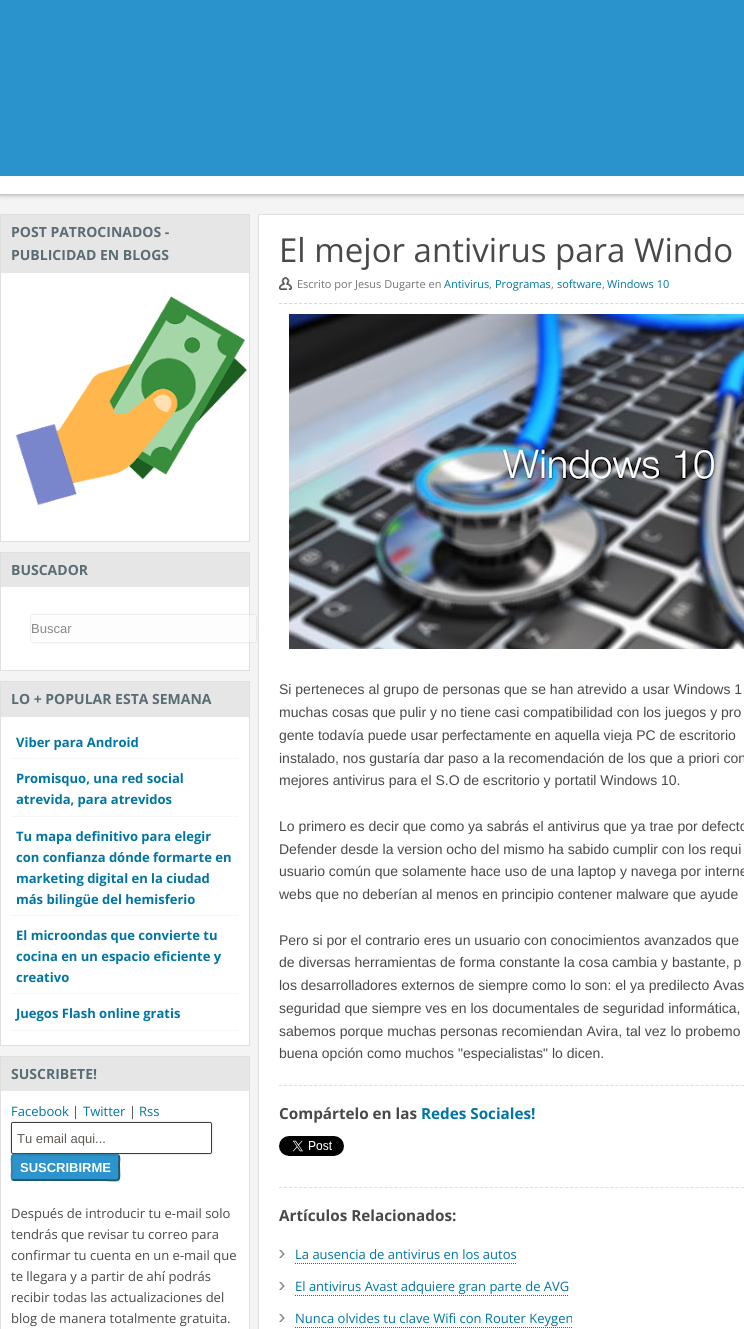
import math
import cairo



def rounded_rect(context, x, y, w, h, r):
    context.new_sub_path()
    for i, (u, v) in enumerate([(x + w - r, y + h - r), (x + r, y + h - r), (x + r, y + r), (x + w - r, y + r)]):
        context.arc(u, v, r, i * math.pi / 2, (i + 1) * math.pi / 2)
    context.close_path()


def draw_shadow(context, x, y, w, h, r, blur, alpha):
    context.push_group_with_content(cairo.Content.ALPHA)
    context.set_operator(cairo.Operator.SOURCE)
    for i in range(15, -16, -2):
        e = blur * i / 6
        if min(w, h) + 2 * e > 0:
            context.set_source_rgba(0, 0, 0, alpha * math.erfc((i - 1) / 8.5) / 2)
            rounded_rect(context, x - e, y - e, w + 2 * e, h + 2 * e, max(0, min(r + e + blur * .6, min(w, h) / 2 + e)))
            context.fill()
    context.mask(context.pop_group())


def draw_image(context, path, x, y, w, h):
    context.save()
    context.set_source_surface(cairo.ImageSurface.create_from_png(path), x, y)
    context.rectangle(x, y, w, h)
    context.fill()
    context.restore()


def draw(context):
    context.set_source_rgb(244 / 255, 244 / 255, 244 / 255)
    context.paint()
    context.set_source_rgb(165 / 255, 165 / 255, 165 / 255)
    draw_shadow(context, 0, -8, 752, 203, 0, 2.5, 1)
    context.set_source_rgb(43 / 255, 147 / 255, 204 / 255)
    context.rectangle(0, 0, 744, 176)
    context.fill()
    context.set_source_rgb(1, 1, 1)
    context.rectangle(0, 176, 744, 18)
    context.fill()
    context.rectangle(0.5, 214.5, 249, 327)
    context.set_source_rgb(223 / 255, 223 / 255, 223 / 255)
    context.set_line_width(1)
    context.stroke()
    context.set_source_rgb(230 / 255, 230 / 255, 230 / 255)
    context.rectangle(1, 215, 248, 58)
    context.fill()
    context.set_source_rgb(1, 1, 1)
    context.rectangle(1, 273, 248, 268)
    context.fill()
    draw_image(context, "images/1.png", 15, 296, 232, 210)
    context.rectangle(0.5, 552.5, 249, 118)
    context.set_source_rgb(223 / 255, 223 / 255, 223 / 255)
    context.stroke()
    context.set_source_rgb(230 / 255, 230 / 255, 230 / 255)
    context.rectangle(1, 553, 248, 34)
    context.fill()
    context.set_source_rgb(1, 1, 1)
    context.rectangle(1, 587, 248, 83)
    context.fill()
    context.rectangle(258.5, 214.5, 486, 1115)
    context.set_source_rgb(223 / 255, 223 / 255, 223 / 255)
    context.stroke()
    context.set_source_rgb(1, 1, 1)
    context.rectangle(259, 215, 485, 1114)
    context.fill()
    context.save()
    context.set_fill_rule(cairo.FillRule.EVEN_ODD)
    context.new_path()
    context.move_to(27, 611)
    context.line_to(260, 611)
    context.line_to(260, 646)
    context.line_to(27, 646)
    context.close_path()
    context.move_to(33, 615)
    context.line_to(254, 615)
    context.curve_to(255, 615, 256, 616, 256, 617)
    context.line_to(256, 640)
    context.curve_to(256, 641, 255, 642, 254, 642)
    context.line_to(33, 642)
    context.curve_to(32, 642, 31, 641, 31, 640)
    context.line_to(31, 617)
    context.curve_to(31, 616, 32, 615, 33, 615)
    context.close_path()
    context.clip()
    context.set_source_rgb(207 / 255, 207 / 255, 207 / 255)
    draw_shadow(context, 31, 615, 225, 27, 2, 1, 1)
    context.restore()
    context.set_source_rgba(251 / 255, 251 / 255, 251 / 255, 0.52)
    rounded_rect(context, 31, 615, 225, 27, 2)
    context.fill()
    context.rectangle(0.5, 681.5, 249, 364)
    context.set_source_rgb(223 / 255, 223 / 255, 223 / 255)
    context.stroke()
    context.set_source_rgb(230 / 255, 230 / 255, 230 / 255)
    context.rectangle(1, 682, 248, 35)
    context.fill()
    context.set_source_rgb(1, 1, 1)
    context.rectangle(1, 717, 248, 328)
    context.fill()
    context.new_path()
    context.move_to(11, 758.5)
    context.line_to(239, 758.5)
    context.set_source_rgb(238 / 255, 238 / 255, 238 / 255)
    context.set_dash([1, 1])
    context.stroke()
    context.new_path()
    context.move_to(11, 816.5)
    context.line_to(239, 816.5)
    context.stroke()
    context.new_path()
    context.move_to(11, 915.5)
    context.line_to(239, 915.5)
    context.stroke()
    context.new_path()
    context.move_to(11, 993.5)
    context.line_to(239, 993.5)
    context.stroke()
    context.new_path()
    context.move_to(11, 1030.5)
    context.line_to(239, 1030.5)
    context.stroke()
    context.rectangle(0.5, 1056.5, 249, 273)
    context.set_source_rgb(223 / 255, 223 / 255, 223 / 255)
    context.set_dash([])
    context.stroke()
    context.set_source_rgb(230 / 255, 230 / 255, 230 / 255)
    context.rectangle(1, 1057, 248, 34)
    context.fill()
    context.set_source_rgb(1, 1, 1)
    context.rectangle(1, 1091, 248, 238)
    context.fill()
    context.save()
    context.set_fill_rule(cairo.FillRule.EVEN_ODD)
    context.new_path()
    context.move_to(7, 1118)
    context.line_to(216, 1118)
    context.line_to(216, 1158)
    context.line_to(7, 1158)
    context.close_path()
    context.move_to(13, 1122)
    context.line_to(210, 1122)
    context.curve_to(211, 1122, 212, 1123, 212, 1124)
    context.line_to(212, 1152)
    context.curve_to(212, 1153, 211, 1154, 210, 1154)
    context.line_to(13, 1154)
    context.curve_to(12, 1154, 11, 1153, 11, 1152)
    context.line_to(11, 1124)
    context.curve_to(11, 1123, 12, 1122, 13, 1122)
    context.close_path()
    context.clip()
    context.set_source_rgb(207 / 255, 207 / 255, 207 / 255)
    draw_shadow(context, 11, 1122, 201, 32, 2, 1, 1)
    context.restore()
    rounded_rect(context, 11.5, 1122.5, 200, 31, 1.5)
    context.set_source_rgb(65 / 255, 60 / 255, 60 / 255)
    context.stroke()
    context.set_source_rgb(44 / 255, 147 / 255, 204 / 255)
    rounded_rect(context, 11, 1154, 109, 27, 3)
    context.fill()
    context.new_path()
    context.move_to(118.5, 1155.5)
    context.curve_to(120, 1157.5, 119, 1162, 119, 1164)
    context.curve_to(119, 1184.5, 123, 1180, 100, 1180)
    context.line_to(13.5, 1180)
    context.line_to(12.5, 1179.5)
    context.set_source_rgb(30 / 255, 90 / 255, 113 / 255)
    context.set_line_width(2)
    context.stroke()
    context.new_path()
    context.move_to(12.5, 1179.5)
    context.curve_to(11, 1177.5, 12, 1173, 12, 1171)
    context.curve_to(12, 1150.5, 8, 1155, 31, 1155)
    context.line_to(117.5, 1155)
    context.line_to(118.5, 1155.5)
    context.set_source_rgb(45 / 255, 135 / 255, 170 / 255)
    context.stroke()
    draw_image(context, "images/2.png", 279, 277, 13, 13)
    context.new_path()
    context.move_to(279, 303.5)
    context.line_to(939, 303.5)
    context.set_source_rgb(216 / 255, 216 / 255, 216 / 255)
    context.set_line_width(1)
    context.set_dash([3, 2.02])
    context.stroke()
    draw_image(context, "images/3.png", 289, 314, 455, 335)
    context.new_path()
    context.move_to(279, 1085.5)
    context.line_to(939, 1085.5)
    context.set_source_rgb(223 / 255, 223 / 255, 223 / 255)
    context.stroke()
    draw_image(context, "images/4.png", 279, 1136, 65, 20)
    context.new_path()
    context.move_to(279, 1187.5)
    context.line_to(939, 1187.5)
    context.stroke()
    draw_image(context, "images/5.png", 279, 1250, 6, 8)
    context.new_path()
    context.move_to(295, 1263.5)
    context.line_to(517, 1263.5)
    context.set_source_rgb(0, 117 / 255, 164 / 255)
    context.set_dash([1, 1])
    context.stroke()
    draw_image(context, "images/5.png", 279, 1282, 6, 8)
    context.new_path()
    context.move_to(295, 1295.5)
    context.line_to(569, 1295.5)
    context.stroke()
    draw_image(context, "images/5.png", 279, 1314, 6, 8)
    context.new_path()
    context.move_to(295, 1327.5)
    context.line_to(573, 1327.5)
    context.stroke()
    context.select_font_face("Open Sans", cairo.FontSlant.NORMAL, cairo.FontWeight.BOLD)
    context.set_font_size(14)
    context.set_source_rgb(91 / 255, 108 / 255, 116 / 255)
    context.move_to(11, 237)
    context.show_text("POST PATROCINADOS -")
    context.move_to(11, 260)
    context.show_text("PUBLICIDAD EN BLOGS")
    context.move_to(11, 575)
    context.show_text("BUSCADOR")
    context.select_font_face("Liberation Sans")
    context.set_font_size(13)
    context.set_source_rgb(136 / 255, 136 / 255, 136 / 255)
    context.move_to(31, 633)
    context.show_text("Buscar")
    context.select_font_face("Open Sans", cairo.FontSlant.NORMAL, cairo.FontWeight.BOLD)
    context.set_font_size(14)
    context.set_source_rgb(91 / 255, 108 / 255, 116 / 255)
    context.move_to(11, 704)
    context.show_text("LO + POPULAR ESTA SEMANA")
    context.set_font_size(13)
    context.set_source_rgb(0, 117 / 255, 164 / 255)
    context.move_to(16, 747)
    context.show_text("Viber para Android")
    context.move_to(16, 783)
    context.show_text("Promisquo, una red social")
    context.move_to(16, 804)
    context.show_text("atrevida, para atrevidos")
    context.move_to(16, 841)
    context.show_text("Tu mapa definitivo para elegir")
    context.move_to(16, 862)
    context.show_text("con confianza dónde formarte en")
    context.move_to(16, 883)
    context.show_text("marketing digital en la ciudad")
    context.move_to(16, 904)
    context.show_text("más bilingüe del hemisferio")
    context.move_to(16, 940)
    context.show_text("El microondas que convierte tu")
    context.move_to(16, 961)
    context.show_text("cocina en un espacio eficiente y")
    context.move_to(16, 982)
    context.show_text("creativo")
    context.move_to(16, 1018)
    context.show_text("Juegos Flash online gratis")
    context.set_font_size(14)
    context.set_source_rgb(91 / 255, 108 / 255, 116 / 255)
    context.move_to(11, 1079)
    context.show_text("SUSCRIBETE!")
    context.select_font_face("Open Sans")
    context.set_font_size(13)
    context.set_source_rgb(0, 117 / 255, 164 / 255)
    context.move_to(11, 1116)
    context.show_text("Facebook")
    context.set_source_rgb(72 / 255, 72 / 255, 72 / 255)
    context.move_to(72, 1116)
    context.show_text("|")
    context.set_source_rgb(0, 117 / 255, 164 / 255)
    context.move_to(83, 1116)
    context.show_text("Twitter")
    context.set_source_rgb(72 / 255, 72 / 255, 72 / 255)
    context.move_to(129, 1116)
    context.show_text("|")
    context.set_source_rgb(0, 117 / 255, 164 / 255)
    context.move_to(139, 1116)
    context.show_text("Rss")
    context.select_font_face("Liberation Sans")
    context.set_source_rgb(95 / 255, 90 / 255, 85 / 255)
    context.move_to(17, 1143)
    context.show_text("Tu email aqui...")
    context.select_font_face("Liberation Sans", cairo.FontSlant.NORMAL, cairo.FontWeight.BOLD)
    context.set_source_rgb(1, 1, 1)
    context.move_to(20, 1172)
    context.show_text("SUSCRIBIRME")
    context.select_font_face("Open Sans")
    context.set_source_rgb(72 / 255, 72 / 255, 72 / 255)
    context.move_to(11, 1218)
    context.show_text("Después de introducir tu e-mail solo")
    context.move_to(11, 1239)
    context.show_text("tendrás que revisar tu correo para")
    context.move_to(11, 1260)
    context.show_text("confirmar tu cuenta en un e-mail que")
    context.move_to(11, 1281)
    context.show_text("te llegara y a partir de ahí podrás")
    context.move_to(11, 1302)
    context.show_text("recibir todas las actualizaciones del")
    context.move_to(11, 1323)
    context.show_text("blog de manera totalmente gratuita.")
    context.set_font_size(33)
    context.move_to(279, 262)
    context.show_text("El mejor antivirus para Windo")
    context.set_font_size(11)
    context.set_source_rgb(119 / 255, 115 / 255, 115 / 255)
    context.move_to(297, 288)
    context.show_text("Escrito por Jesus Dugarte en")
    context.set_source_rgb(0, 117 / 255, 164 / 255)
    context.move_to(444, 288)
    context.show_text("Antivirus")
    context.set_source_rgb(119 / 255, 115 / 255, 115 / 255)
    context.move_to(489, 288)
    context.show_text(",")
    context.set_source_rgb(0, 117 / 255, 164 / 255)
    context.move_to(495, 288)
    context.show_text("Programas")
    context.set_source_rgb(119 / 255, 115 / 255, 115 / 255)
    context.move_to(551, 288)
    context.show_text(",")
    context.set_source_rgb(0, 117 / 255, 164 / 255)
    context.move_to(557, 288)
    context.show_text("software")
    context.set_source_rgb(119 / 255, 115 / 255, 115 / 255)
    context.move_to(602, 288)
    context.show_text(",")
    context.set_source_rgb(0, 117 / 255, 164 / 255)
    context.move_to(607, 288)
    context.show_text("Windows 10")
    context.select_font_face("Liberation Sans")
    context.set_font_size(14)
    context.set_source_rgb(72 / 255, 72 / 255, 72 / 255)
    context.move_to(279, 694)
    context.show_text("Si perteneces al grupo de personas que se han atrevido a usar Windows 1")
    context.move_to(279, 717)
    context.show_text("muchas cosas que pulir y no tiene casi compatibilidad con los juegos y pro")
    context.move_to(279, 740)
    context.show_text("gente todavía puede usar perfectamente en aquella vieja PC de escritorio")
    context.move_to(279, 763)
    context.show_text("instalado, nos gustaría dar paso a la recomendación de los que a priori con")
    context.move_to(279, 785)
    context.show_text("mejores antivirus para el S.O de escritorio y portatil Windows 10.")
    context.move_to(279, 831)
    context.show_text("Lo primero es decir que como ya sabrás el antivirus que ya trae por defecto")
    context.move_to(279, 854)
    context.show_text("Defender desde la version ocho del mismo ha sabido cumplir con los requi")
    context.move_to(279, 876)
    context.show_text("usuario común que solamente hace uso de una laptop y navega por interne")
    context.move_to(279, 899)
    context.show_text("webs que no deberían al menos en principio contener malware que ayude")
    context.move_to(279, 945)
    context.show_text("Pero si por el contrario eres un usuario con conocimientos avanzados que")
    context.move_to(279, 967)
    context.show_text("de diversas herramientas de forma constante la cosa cambia y bastante, p")
    context.move_to(279, 990)
    context.show_text("los desarrolladores externos de siempre como lo son: el ya predilecto Avas")
    context.move_to(279, 1013)
    context.show_text("seguridad que siempre ves en los documentales de seguridad informática,")
    context.move_to(279, 1036)
    context.show_text("sabemos porque muchas personas recomiendan Avira, tal vez lo probemo")
    context.move_to(279, 1058)
    context.show_text("buena opción como muchos \"especialistas\" lo dicen.")
    context.select_font_face("Open Sans", cairo.FontSlant.NORMAL, cairo.FontWeight.BOLD)
    context.set_font_size(15.25)
    context.move_to(279, 1119)
    context.show_text("Compártelo en las")
    context.set_source_rgb(0, 117 / 255, 164 / 255)
    context.move_to(421, 1119)
    context.show_text("Redes Sociales!")
    context.set_source_rgb(72 / 255, 72 / 255, 72 / 255)
    context.move_to(279, 1221)
    context.show_text("Artículos Relacionados:")
    context.select_font_face("Open Sans")
    context.set_font_size(13)
    context.set_source_rgb(0, 117 / 255, 164 / 255)
    context.move_to(295, 1259)
    context.show_text("La ausencia de antivirus en los autos")
    context.move_to(295, 1291)
    context.show_text("El antivirus Avast adquiere gran parte de AVG")
    context.move_to(295, 1323)
    context.show_text("Nunca olvides tu clave Wifi con Router Keygen")


surface = cairo.ImageSurface(cairo.Format.RGB24, 744, 1329)
context = cairo.Context(surface)
options = cairo.FontOptions()
options.set_hint_metrics(cairo.HintMetrics.OFF)
options.set_hint_style(cairo.HintStyle.NONE)
context.set_font_options(options)
context.set_miter_limit(4)
draw(context)
surface.write_to_png("out.png")
